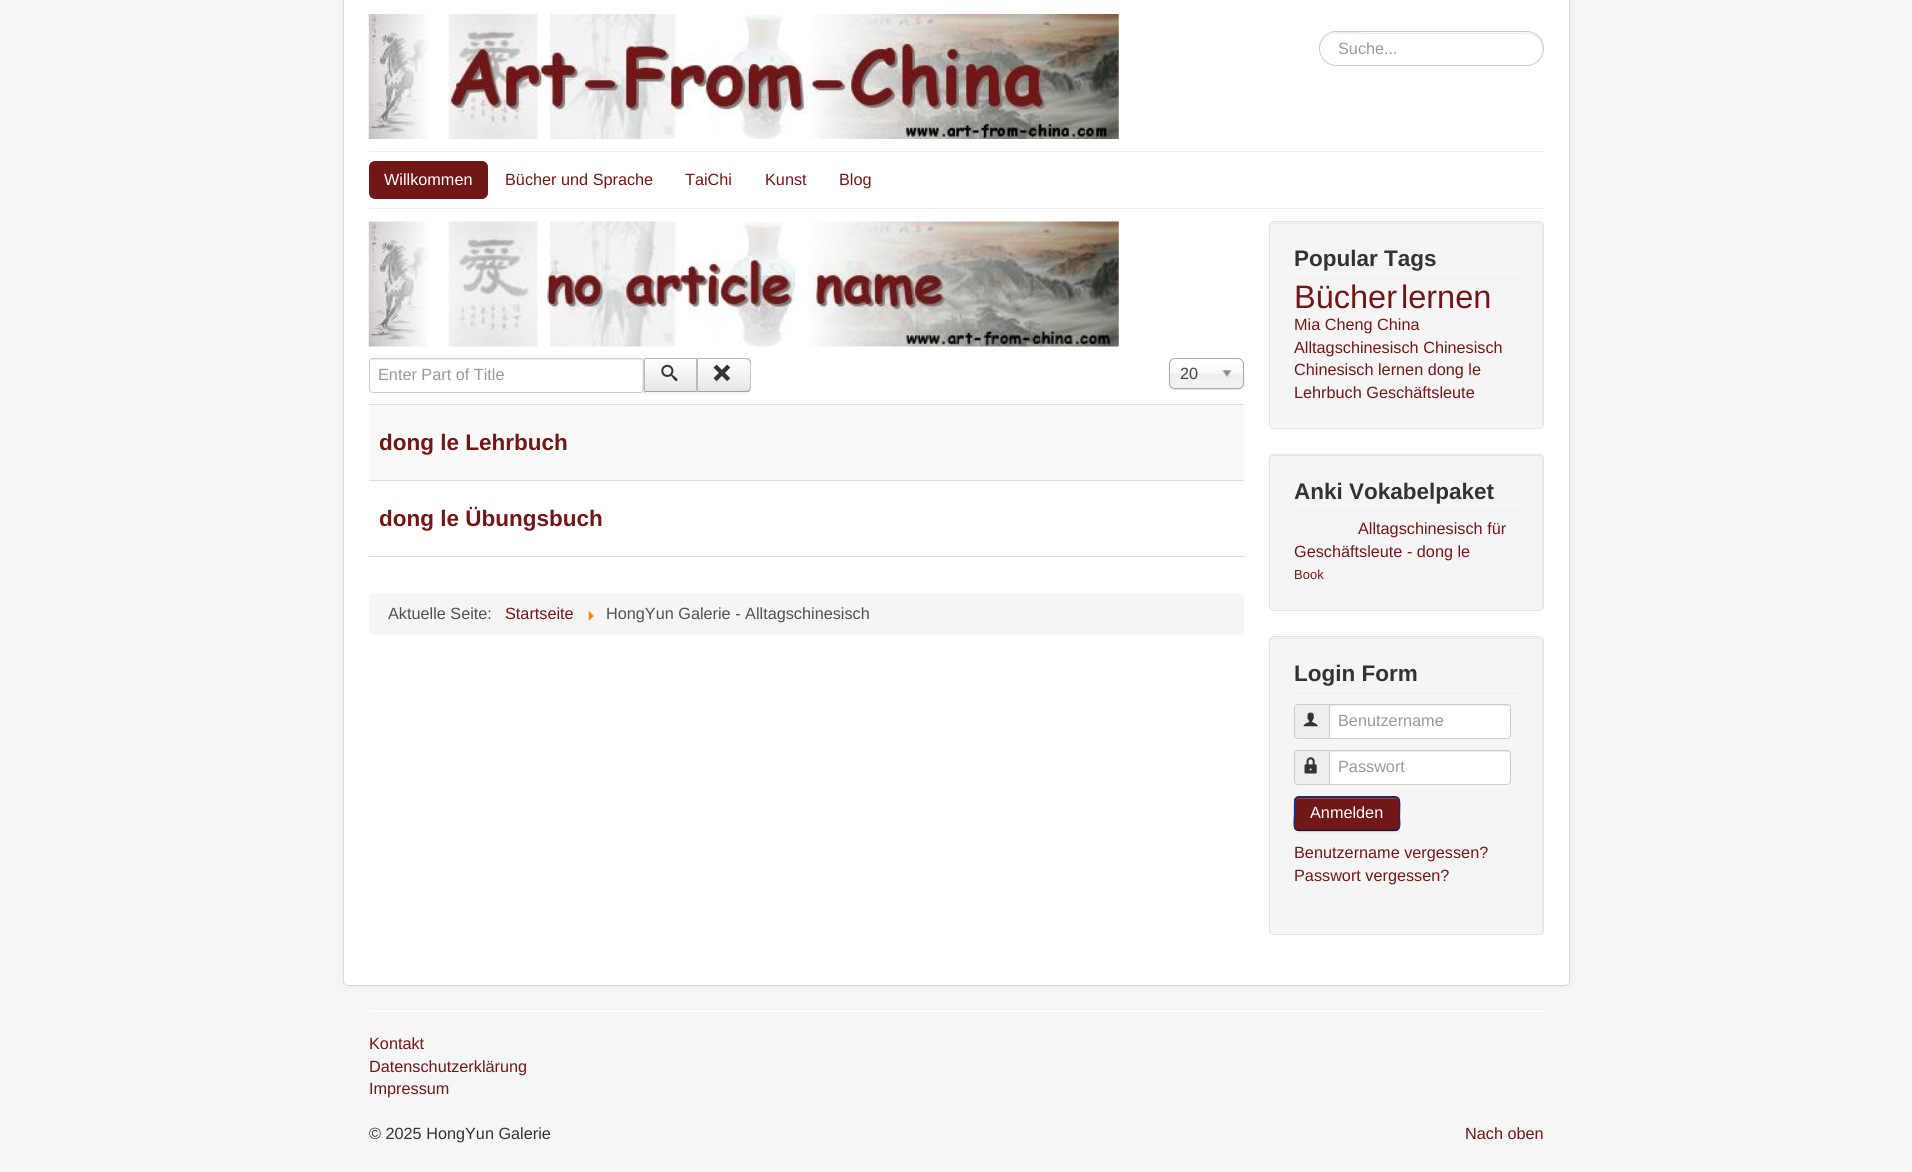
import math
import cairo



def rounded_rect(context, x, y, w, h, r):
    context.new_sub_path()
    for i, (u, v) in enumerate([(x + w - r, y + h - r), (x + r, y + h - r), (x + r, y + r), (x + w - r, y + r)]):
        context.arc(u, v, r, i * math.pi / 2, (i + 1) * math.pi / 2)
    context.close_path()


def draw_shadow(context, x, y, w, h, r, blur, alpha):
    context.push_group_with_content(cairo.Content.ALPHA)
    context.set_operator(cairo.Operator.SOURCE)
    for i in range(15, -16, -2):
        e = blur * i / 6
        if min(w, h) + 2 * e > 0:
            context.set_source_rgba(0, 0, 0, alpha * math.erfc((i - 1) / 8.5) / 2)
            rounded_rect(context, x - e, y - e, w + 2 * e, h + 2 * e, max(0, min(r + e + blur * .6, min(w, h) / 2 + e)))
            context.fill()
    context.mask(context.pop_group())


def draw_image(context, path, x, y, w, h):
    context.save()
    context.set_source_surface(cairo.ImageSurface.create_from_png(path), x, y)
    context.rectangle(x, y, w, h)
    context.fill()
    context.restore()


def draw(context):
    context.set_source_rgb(244 / 255, 246 / 255, 247 / 255)
    context.paint()
    context.set_source_rgb(0, 0, 0)
    draw_shadow(context, 343, -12, 1227, 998, 5, 4, 0.05)
    context.set_source_rgb(1, 1, 1)
    rounded_rect(context, 343, -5, 1227, 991, 5)
    context.fill()
    rounded_rect(context, 343.5, -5.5, 1226, 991, 4.5)
    context.set_source_rgba(0, 0, 0, 0.15)
    context.set_line_width(1)
    context.stroke()
    draw_image(context, "images/1.png", 368, 14, 751, 125)
    context.set_source_rgb(236 / 255, 236 / 255, 236 / 255)
    context.new_path()
    context.move_to(1336, 34)
    context.line_to(1526, 34)
    context.curve_to(1535, 34, 1542, 41, 1542, 50)
    context.curve_to(1542, 54, 1541, 57, 1538, 60)
    context.curve_to(1542, 56, 1544, 51, 1543, 46)
    context.curve_to(1541, 38, 1534, 33, 1527, 33)
    context.line_to(1368, 33)
    context.curve_to(1357, 33, 1319, 26, 1320, 49)
    context.curve_to(1320, 41, 1327, 34, 1336, 34)
    context.close_path()
    context.fill()
    rounded_rect(context, 1319.5, 31.5, 224, 34, 17)
    context.set_source_rgb(204 / 255, 204 / 255, 204 / 255)
    context.stroke()
    context.set_source_rgb(236 / 255, 236 / 255, 236 / 255)
    context.rectangle(369, 151, 1175, 1)
    context.fill()
    context.rectangle(369, 208, 1175, 1)
    context.fill()
    context.set_source_rgb(114 / 255, 23 / 255, 23 / 255)
    rounded_rect(context, 369, 161, 119, 38, 6)
    context.fill()
    draw_image(context, "images/2.png", 368, 221, 751, 126)
    context.set_source_rgb(236 / 255, 236 / 255, 236 / 255)
    context.new_path()
    context.move_to(372, 360)
    context.line_to(640, 360)
    context.curve_to(644, 360, 642, 370, 642, 371)
    context.line_to(642, 391)
    context.curve_to(643, 390, 643, 389, 643, 388)
    context.line_to(643, 362)
    context.curve_to(643, 360, 642, 359, 640, 359)
    context.line_to(372, 359)
    context.curve_to(371, 359, 370, 360, 370, 362)
    context.curve_to(370, 361, 371, 360, 372, 360)
    context.close_path()
    context.fill()
    rounded_rect(context, 369.5, 358.5, 274, 34, 3.5)
    context.set_source_rgb(204 / 255, 204 / 255, 204 / 255)
    context.stroke()
    context.set_source_rgb(0, 0, 0)
    draw_shadow(context, 644, 359, 54, 35, 0, 1, 0.05)
    gradient = cairo.LinearGradient(671, 359, 671, 391)
    gradient.add_color_stop_rgba(0, 1, 1, 1, 1)
    gradient.add_color_stop_rgba(1, 230 / 255, 230 / 255, 230 / 255, 1)
    context.set_source(gradient)
    context.rectangle(645, 359, 51, 32)
    context.fill()
    context.set_source_rgb(187 / 255, 187 / 255, 187 / 255)
    context.rectangle(644, 358, 54, 1)
    context.fill()
    context.set_source_rgb(162 / 255, 162 / 255, 162 / 255)
    context.rectangle(644, 391, 54, 1)
    context.fill()
    context.set_source_rgb(187 / 255, 187 / 255, 187 / 255)
    context.rectangle(644, 358, 1, 35)
    context.fill()
    draw_image(context, "images/3.png", 661, 364, 17, 17)
    context.set_source_rgb(0, 0, 0)
    draw_shadow(context, 696, 359, 55, 35, 5, 1, 0.05)
    context.set_source_rgb(245 / 255, 245 / 255, 245 / 255)
    context.new_path()
    context.move_to(696, 358)
    context.line_to(746, 358)
    context.curve_to(749, 358, 751, 360, 751, 363)
    context.line_to(751, 388)
    context.curve_to(751, 391, 749, 393, 746, 393)
    context.line_to(696, 393)
    context.close_path()
    context.fill()
    context.save()
    context.new_path()
    context.move_to(696, 358)
    context.line_to(746, 358)
    context.curve_to(749, 358, 751, 360, 751, 363)
    context.line_to(751, 388)
    context.curve_to(751, 391, 749, 393, 746, 393)
    context.line_to(696, 393)
    context.close_path()
    context.clip()
    gradient = cairo.LinearGradient(724, 359, 724, 391)
    gradient.add_color_stop_rgba(0, 1, 1, 1, 1)
    gradient.add_color_stop_rgba(1, 230 / 255, 230 / 255, 230 / 255, 1)
    context.set_source(gradient)
    context.rectangle(698, 359, 53, 32)
    context.fill()
    context.restore()
    context.set_source_rgb(187 / 255, 187 / 255, 187 / 255)
    context.new_path()
    context.move_to(698, 359)
    context.line_to(738, 359)
    context.curve_to(744, 359, 747, 359, 749, 360)
    context.line_to(750, 359)
    context.curve_to(749, 358, 747, 358, 746, 358)
    context.line_to(697, 358)
    context.close_path()
    context.fill()
    context.new_path()
    context.move_to(749.5, 359)
    context.curve_to(750.5, 360, 751, 361, 751, 362)
    context.line_to(751, 388)
    context.curve_to(751, 389, 750.5, 390, 749.5, 391)
    context.line_to(748.5, 390)
    context.curve_to(751.5, 388, 750, 378, 750, 375)
    context.curve_to(750, 372, 751.5, 362, 748.5, 360)
    context.close_path()
    context.fill()
    context.set_source_rgb(162 / 255, 162 / 255, 162 / 255)
    context.new_path()
    context.move_to(750, 391)
    context.curve_to(749, 392, 747, 392, 746, 392)
    context.line_to(697, 392)
    context.line_to(698, 391)
    context.line_to(738, 391)
    context.curve_to(744, 391, 747, 391, 749, 390)
    context.close_path()
    context.fill()
    context.set_source_rgb(187 / 255, 187 / 255, 187 / 255)
    context.new_path()
    context.move_to(696, 358)
    context.line_to(697, 358)
    context.line_to(698, 359)
    context.line_to(698, 391)
    context.line_to(697, 392)
    context.line_to(696, 392)
    context.close_path()
    context.fill()
    draw_image(context, "images/4.png", 713, 364, 17, 17)
    context.set_source_rgb(0, 0, 0)
    draw_shadow(context, 1169, 359, 75, 31, 6, 0.5, 0.1)
    gradient = cairo.LinearGradient(1206, 359, 1206, 388)
    gradient.add_color_stop_rgba(0.2, 1, 1, 1, 1)
    gradient.add_color_stop_rgba(0.5, 246 / 255, 246 / 255, 246 / 255, 1)
    gradient.add_color_stop_rgba(0.52, 238 / 255, 238 / 255, 238 / 255, 1)
    gradient.add_color_stop_rgba(1, 244 / 255, 244 / 255, 244 / 255, 1)
    context.set_source(gradient)
    rounded_rect(context, 1170, 359, 73, 29, 5)
    context.fill()
    rounded_rect(context, 1169.5, 358.5, 74, 30, 5.5)
    context.set_source_rgb(170 / 255, 170 / 255, 170 / 255)
    context.stroke()
    draw_image(context, "images/5.png", 1222, 370, 10, 7)
    context.set_source_rgb(221 / 255, 221 / 255, 221 / 255)
    context.rectangle(369, 404, 875, 1)
    context.fill()
    context.set_source_rgb(249 / 255, 249 / 255, 249 / 255)
    context.rectangle(369, 405, 875, 75)
    context.fill()
    context.set_source_rgb(221 / 255, 221 / 255, 221 / 255)
    context.rectangle(369, 480, 875, 1)
    context.fill()
    context.rectangle(369, 556, 875, 1)
    context.fill()
    context.set_source_rgb(245 / 255, 245 / 255, 245 / 255)
    rounded_rect(context, 369, 593, 875, 42, 5)
    context.fill()
    draw_image(context, "images/6.png", 588, 611, 6, 10)
    rounded_rect(context, 1269, 221, 275, 208, 5)
    context.fill()
    context.set_source_rgb(233 / 255, 233 / 255, 233 / 255)
    context.new_path()
    context.move_to(1274, 224)
    context.line_to(1539, 224)
    context.curve_to(1541, 224, 1542, 225, 1542, 228)
    context.line_to(1542, 425)
    context.line_to(1542, 427)
    context.curve_to(1542, 426, 1543, 425, 1543, 424)
    context.line_to(1543, 227)
    context.curve_to(1543, 225, 1541, 223, 1539, 223)
    context.line_to(1274, 223)
    context.curve_to(1272, 223, 1270, 225, 1270, 227)
    context.line_to(1270, 228)
    context.curve_to(1270, 225, 1272, 224, 1274, 224)
    context.close_path()
    context.fill()
    rounded_rect(context, 1269.5, 221.5, 274, 207, 4.5)
    context.set_source_rgb(227 / 255, 227 / 255, 227 / 255)
    context.stroke()
    context.set_source_rgb(238 / 255, 238 / 255, 238 / 255)
    context.rectangle(1294, 278, 225, 1)
    context.fill()
    context.set_source_rgb(245 / 255, 245 / 255, 245 / 255)
    rounded_rect(context, 1269, 454, 275, 157, 5)
    context.fill()
    context.set_source_rgb(233 / 255, 233 / 255, 233 / 255)
    context.new_path()
    context.move_to(1274, 456)
    context.line_to(1539, 456)
    context.curve_to(1541, 456, 1542, 458, 1542, 460)
    context.line_to(1542, 609)
    context.curve_to(1543, 608, 1543, 607, 1543, 606)
    context.line_to(1543, 459)
    context.curve_to(1543, 457, 1541, 455, 1539, 455)
    context.line_to(1274, 455)
    context.curve_to(1272, 455, 1270, 457, 1270, 459)
    context.line_to(1270, 460)
    context.curve_to(1270, 458, 1272, 456, 1274, 456)
    context.close_path()
    context.fill()
    rounded_rect(context, 1269.5, 454.5, 274, 156, 4.5)
    context.set_source_rgb(227 / 255, 227 / 255, 227 / 255)
    context.stroke()
    context.set_source_rgb(238 / 255, 238 / 255, 238 / 255)
    context.rectangle(1294, 510, 225, 1)
    context.fill()
    context.set_source_rgb(245 / 255, 245 / 255, 245 / 255)
    rounded_rect(context, 1269, 636, 275, 299, 5)
    context.fill()
    context.set_source_rgb(233 / 255, 233 / 255, 233 / 255)
    context.new_path()
    context.move_to(1274, 639)
    context.line_to(1539, 639)
    context.curve_to(1541, 639, 1542, 640, 1542, 642)
    context.line_to(1542, 931)
    context.line_to(1542, 933)
    context.curve_to(1542, 932, 1543, 931, 1543, 930)
    context.line_to(1543, 642)
    context.curve_to(1543, 640, 1541, 638, 1539, 638)
    context.line_to(1274, 638)
    context.curve_to(1272, 638, 1270, 640, 1270, 642)
    context.curve_to(1270, 640, 1272, 639, 1274, 639)
    context.close_path()
    context.fill()
    rounded_rect(context, 1269.5, 636.5, 274, 298, 4.5)
    context.set_source_rgb(227 / 255, 227 / 255, 227 / 255)
    context.stroke()
    context.set_source_rgb(238 / 255, 238 / 255, 238 / 255)
    context.rectangle(1294, 693, 225, 1)
    context.fill()
    context.new_path()
    context.move_to(1298, 704.5)
    context.line_to(1329.5, 704.5)
    context.line_to(1329.5, 738.5)
    context.line_to(1298, 738.5)
    context.curve_to(1296, 738.5, 1294.5, 737, 1294.5, 735)
    context.line_to(1294.5, 708)
    context.curve_to(1294.5, 706, 1296, 704.5, 1298, 704.5)
    context.close_path()
    context.fill_preserve()
    context.set_source_rgb(204 / 255, 204 / 255, 204 / 255)
    context.stroke()
    draw_image(context, "images/7.png", 1303, 712, 15, 15)
    context.set_source_rgb(1, 1, 1)
    context.new_path()
    context.move_to(1329, 704)
    context.line_to(1507, 704)
    context.curve_to(1509, 704, 1511, 706, 1511, 708)
    context.line_to(1511, 735)
    context.curve_to(1511, 737, 1509, 739, 1507, 739)
    context.line_to(1329, 739)
    context.close_path()
    context.fill()
    context.set_source_rgb(236 / 255, 236 / 255, 236 / 255)
    context.new_path()
    context.move_to(1330, 706)
    context.line_to(1508, 706)
    context.curve_to(1509, 706, 1510, 707, 1510, 709)
    context.curve_to(1510, 707, 1510, 705, 1508, 705)
    context.line_to(1330, 705)
    context.close_path()
    context.fill()
    context.new_path()
    context.move_to(1329.5, 704.5)
    context.line_to(1507, 704.5)
    context.curve_to(1509, 704.5, 1510.5, 706, 1510.5, 708)
    context.line_to(1510.5, 735)
    context.curve_to(1510.5, 737, 1509, 738.5, 1507, 738.5)
    context.line_to(1329.5, 738.5)
    context.close_path()
    context.set_source_rgb(204 / 255, 204 / 255, 204 / 255)
    context.stroke()
    context.set_source_rgb(238 / 255, 238 / 255, 238 / 255)
    context.new_path()
    context.move_to(1298, 750.5)
    context.line_to(1329.5, 750.5)
    context.line_to(1329.5, 784.5)
    context.line_to(1298, 784.5)
    context.curve_to(1296, 784.5, 1294.5, 783, 1294.5, 781)
    context.line_to(1294.5, 754)
    context.curve_to(1294.5, 752, 1296, 750.5, 1298, 750.5)
    context.close_path()
    context.fill_preserve()
    context.set_source_rgb(204 / 255, 204 / 255, 204 / 255)
    context.stroke()
    draw_image(context, "images/8.png", 1304, 757, 13, 17)
    context.set_source_rgb(1, 1, 1)
    context.new_path()
    context.move_to(1329, 750)
    context.line_to(1507, 750)
    context.curve_to(1509, 750, 1511, 752, 1511, 754)
    context.line_to(1511, 781)
    context.curve_to(1511, 783, 1509, 785, 1507, 785)
    context.line_to(1329, 785)
    context.close_path()
    context.fill()
    context.set_source_rgb(236 / 255, 236 / 255, 236 / 255)
    context.new_path()
    context.move_to(1330, 752)
    context.line_to(1508, 752)
    context.curve_to(1509, 752, 1510, 754, 1510, 755)
    context.curve_to(1510, 753, 1510, 751, 1508, 751)
    context.line_to(1330, 751)
    context.close_path()
    context.fill()
    context.new_path()
    context.move_to(1329.5, 750.5)
    context.line_to(1507, 750.5)
    context.curve_to(1509, 750.5, 1510.5, 752, 1510.5, 754)
    context.line_to(1510.5, 781)
    context.curve_to(1510.5, 783, 1509, 784.5, 1507, 784.5)
    context.line_to(1329.5, 784.5)
    context.close_path()
    context.set_source_rgb(204 / 255, 204 / 255, 204 / 255)
    context.stroke()
    context.set_source_rgb(0, 0, 0)
    draw_shadow(context, 1294, 798, 106, 35, 5, 1, 0.05)
    context.set_source_rgb(114 / 255, 23 / 255, 23 / 255)
    rounded_rect(context, 1294, 796, 106, 35, 5)
    context.fill()
    context.set_source_rgb(142 / 255, 69 / 255, 69 / 255)
    context.new_path()
    context.move_to(1299, 799)
    context.line_to(1395, 799)
    context.curve_to(1397, 799, 1399, 800, 1399, 802)
    context.curve_to(1399, 800, 1397, 798, 1395, 798)
    context.line_to(1299, 798)
    context.curve_to(1297, 798, 1295, 800, 1295, 802)
    context.curve_to(1295, 800, 1297, 799, 1299, 799)
    context.close_path()
    context.fill()
    context.new_path()
    context.move_to(1398, 829.5)
    context.line_to(1395.5, 830.5)
    context.line_to(1298.5, 830.5)
    context.line_to(1295.5, 829.5)
    context.set_source_rgb(0, 22 / 255, 65 / 255)
    context.set_line_width(1.2)
    context.stroke()
    context.new_path()
    context.move_to(1295.5, 829.5)
    context.curve_to(1293, 827, 1294.5, 817, 1294.5, 814)
    context.curve_to(1294.5, 793.5, 1292.5, 797, 1315, 797)
    context.line_to(1379, 797)
    context.curve_to(1403.5, 797, 1399.5, 794, 1399.5, 818)
    context.curve_to(1399.5, 821, 1401, 826.5, 1398, 829.5)
    context.set_source_rgb(0, 47 / 255, 141 / 255)
    context.stroke()
    context.set_source_rgb(238 / 255, 238 / 255, 238 / 255)
    context.rectangle(369, 1009, 1175, 1)
    context.fill()
    context.set_source_rgb(1, 1, 1)
    context.rectangle(369, 1010, 1175, 1)
    context.fill()
    context.select_font_face("Liberation Sans")
    context.set_font_size(16.25)
    context.set_source_rgb(153 / 255, 153 / 255, 153 / 255)
    context.move_to(1338, 54)
    context.show_text("Suche...")
    context.set_source_rgb(1, 1, 1)
    context.move_to(384, 185)
    context.show_text("Willkommen")
    context.set_source_rgb(114 / 255, 23 / 255, 23 / 255)
    context.move_to(505, 185)
    context.show_text("Bücher und Sprache")
    context.move_to(685, 185)
    context.show_text("TaiChi")
    context.move_to(765, 185)
    context.show_text("Kunst")
    context.move_to(839, 185)
    context.show_text("Blog")
    context.set_source_rgb(153 / 255, 153 / 255, 153 / 255)
    context.move_to(378, 380)
    context.show_text("Enter Part of Title")
    context.set_source_rgb(68 / 255, 68 / 255, 68 / 255)
    context.move_to(1180, 379)
    context.show_text("20")
    context.select_font_face("Liberation Sans", cairo.FontSlant.NORMAL, cairo.FontWeight.BOLD)
    context.set_font_size(22.5)
    context.set_source_rgb(114 / 255, 23 / 255, 23 / 255)
    context.move_to(379, 450)
    context.show_text("dong le Lehrbuch")
    context.move_to(379, 526)
    context.show_text("dong le Übungsbuch")
    context.select_font_face("Liberation Sans")
    context.set_font_size(16.25)
    context.set_source_rgb(81 / 255, 81 / 255, 81 / 255)
    context.move_to(388, 619)
    context.show_text("Aktuelle Seite:")
    context.set_source_rgb(114 / 255, 23 / 255, 23 / 255)
    context.move_to(505, 619)
    context.show_text("Startseite")
    context.set_source_rgb(81 / 255, 81 / 255, 81 / 255)
    context.move_to(606, 619)
    context.show_text("HongYun Galerie - Alltagschinesisch")
    context.select_font_face("Liberation Sans", cairo.FontSlant.NORMAL, cairo.FontWeight.BOLD)
    context.set_font_size(22.5)
    context.set_source_rgb(51 / 255, 51 / 255, 51 / 255)
    context.move_to(1294, 266)
    context.show_text("Popular Tags")
    context.select_font_face("Liberation Sans")
    context.set_font_size(32.5)
    context.set_source_rgb(114 / 255, 23 / 255, 23 / 255)
    context.move_to(1294, 308)
    context.show_text("Bücher")
    context.move_to(1401, 308)
    context.show_text("lernen")
    context.set_font_size(16.25)
    context.move_to(1294, 330)
    context.show_text("Mia Cheng China")
    context.move_to(1294, 353)
    context.show_text("Alltagschinesisch Chinesisch")
    context.move_to(1294, 375)
    context.show_text("Chinesisch lernen dong le")
    context.move_to(1294, 398)
    context.show_text("Lehrbuch Geschäftsleute")
    context.select_font_face("Liberation Sans", cairo.FontSlant.NORMAL, cairo.FontWeight.BOLD)
    context.set_font_size(22.5)
    context.set_source_rgb(51 / 255, 51 / 255, 51 / 255)
    context.move_to(1294, 499)
    context.show_text("Anki Vokabelpaket")
    context.select_font_face("Liberation Sans")
    context.set_font_size(16.25)
    context.set_source_rgb(114 / 255, 23 / 255, 23 / 255)
    context.move_to(1358, 534)
    context.show_text("Alltagschinesisch für")
    context.move_to(1294, 557)
    context.show_text("Geschäftsleute - dong le")
    context.set_font_size(13)
    context.move_to(1294, 579)
    context.show_text("Book")
    context.select_font_face("Liberation Sans", cairo.FontSlant.NORMAL, cairo.FontWeight.BOLD)
    context.set_font_size(22.5)
    context.set_source_rgb(51 / 255, 51 / 255, 51 / 255)
    context.move_to(1294, 681)
    context.show_text("Login Form")
    context.select_font_face("Liberation Sans")
    context.set_font_size(16.25)
    context.set_source_rgb(153 / 255, 153 / 255, 153 / 255)
    context.move_to(1338, 726)
    context.show_text("Benutzername")
    context.move_to(1338, 772)
    context.show_text("Passwort")
    context.set_source_rgb(1, 1, 1)
    context.move_to(1310, 818)
    context.show_text("Anmelden")
    context.set_source_rgb(114 / 255, 23 / 255, 23 / 255)
    context.move_to(1294, 858)
    context.show_text("Benutzername vergessen?")
    context.move_to(1294, 881)
    context.show_text("Passwort vergessen?")
    context.move_to(369, 1049)
    context.show_text("Kontakt")
    context.move_to(369, 1072)
    context.show_text("Datenschutzerklärung")
    context.move_to(369, 1094)
    context.show_text("Impressum")
    context.set_source_rgb(51 / 255, 51 / 255, 51 / 255)
    context.move_to(369, 1139)
    context.show_text("© 2025 HongYun Galerie")
    context.set_source_rgb(114 / 255, 23 / 255, 23 / 255)
    context.move_to(1465, 1139)
    context.show_text("Nach oben")


surface = cairo.ImageSurface(cairo.Format.RGB24, 1912, 1172)
context = cairo.Context(surface)
options = cairo.FontOptions()
options.set_hint_metrics(cairo.HintMetrics.OFF)
options.set_hint_style(cairo.HintStyle.NONE)
context.set_font_options(options)
context.set_miter_limit(4)
draw(context)
surface.write_to_png("out.png")
